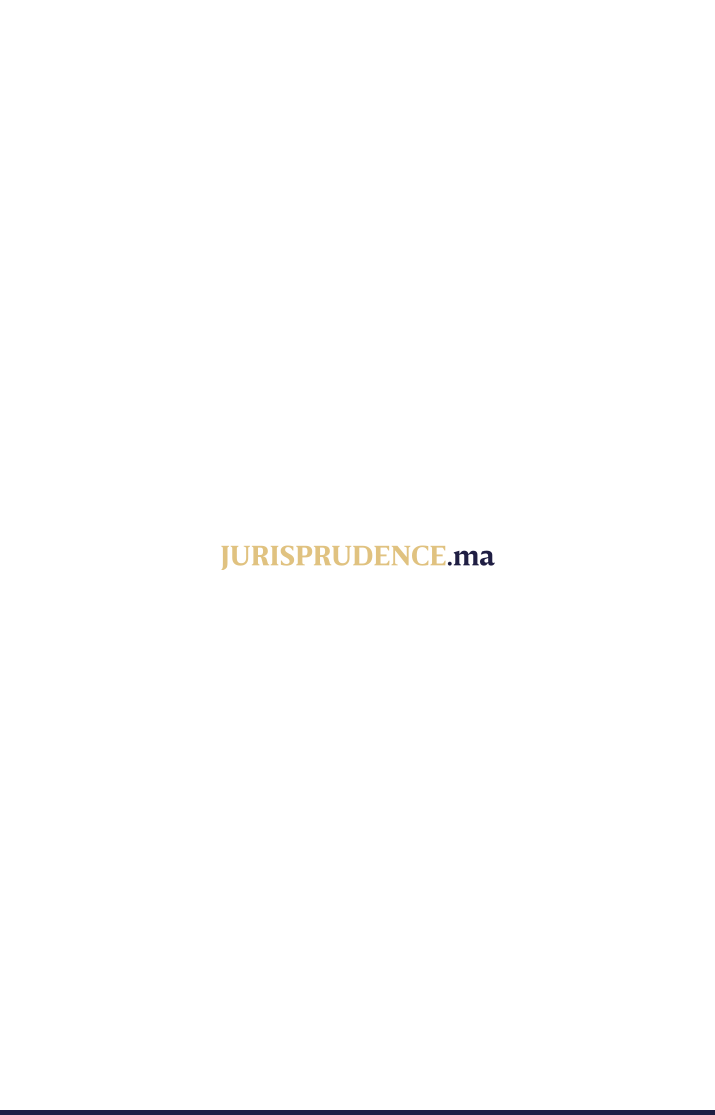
import math
import cairo



def draw_image(context, path, x, y, w, h):
    context.save()
    context.set_source_surface(cairo.ImageSurface.create_from_png(path), x, y)
    context.rectangle(x, y, w, h)
    context.fill()
    context.restore()


def draw(context):
    context.set_source_rgb(1, 1, 1)
    context.paint()
    draw_image(context, "images/1.png", 221, 545, 274, 25)
    context.set_source_rgb(31 / 255, 30 / 255, 67 / 255)
    context.rectangle(0, 1110, 715, 5)
    context.fill()


surface = cairo.ImageSurface(cairo.Format.RGB24, 715, 1115)
context = cairo.Context(surface)
options = cairo.FontOptions()
options.set_hint_metrics(cairo.HintMetrics.OFF)
options.set_hint_style(cairo.HintStyle.NONE)
context.set_font_options(options)
context.set_miter_limit(4)
draw(context)
surface.write_to_png("out.png")
